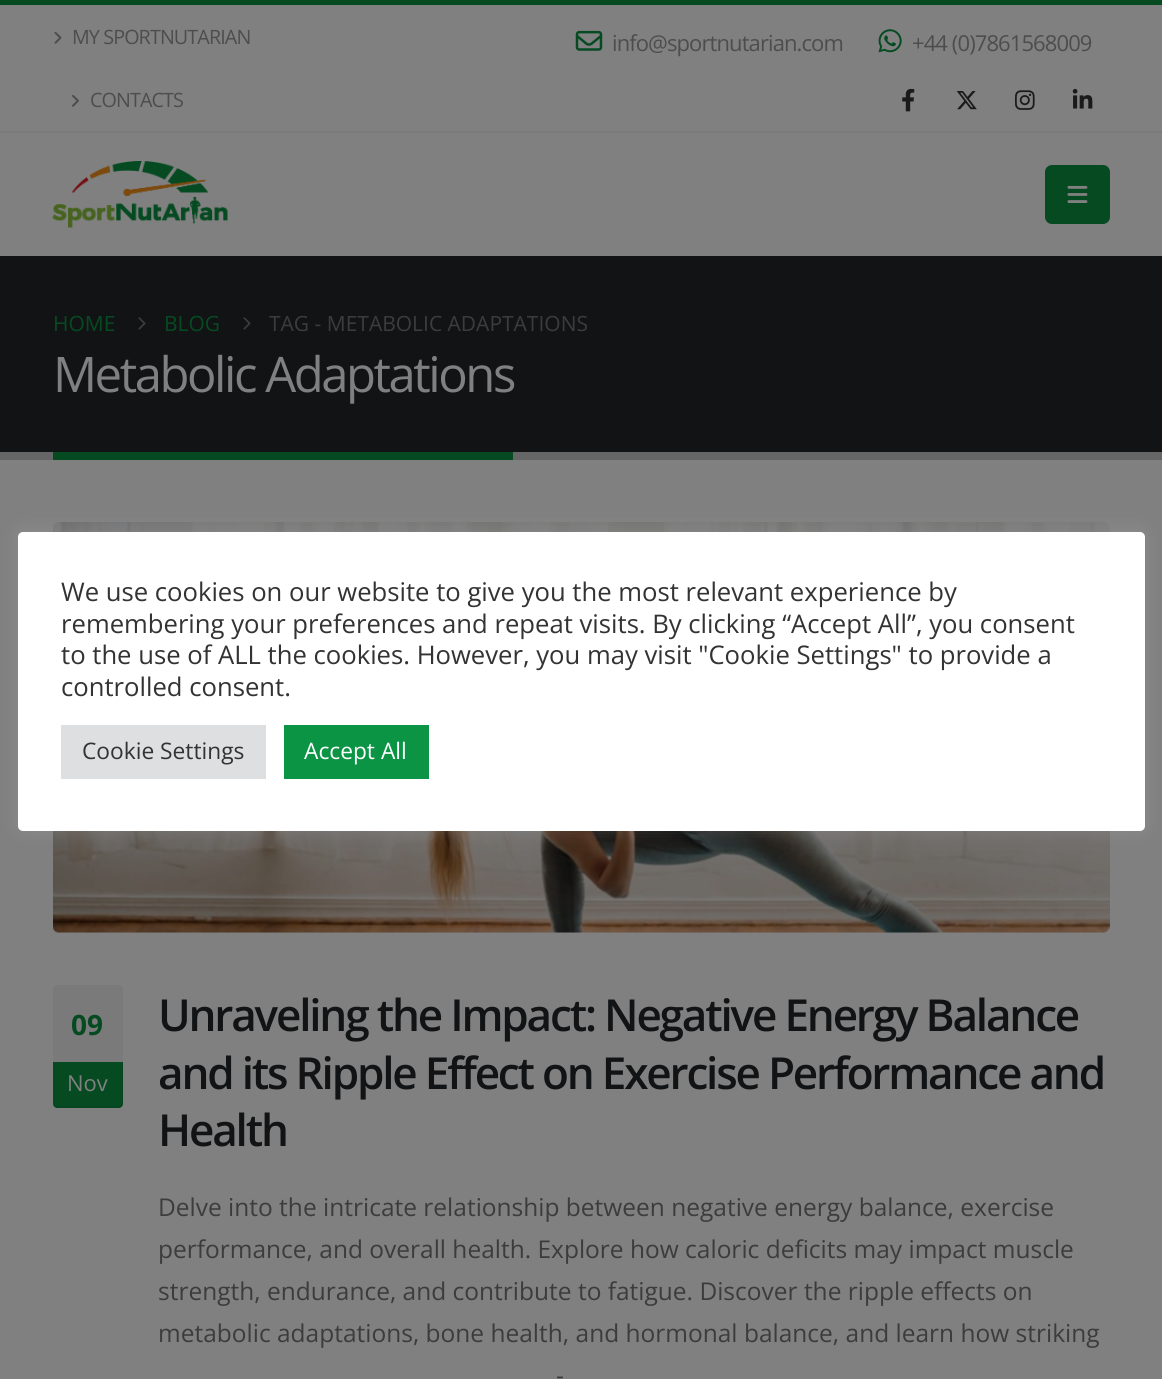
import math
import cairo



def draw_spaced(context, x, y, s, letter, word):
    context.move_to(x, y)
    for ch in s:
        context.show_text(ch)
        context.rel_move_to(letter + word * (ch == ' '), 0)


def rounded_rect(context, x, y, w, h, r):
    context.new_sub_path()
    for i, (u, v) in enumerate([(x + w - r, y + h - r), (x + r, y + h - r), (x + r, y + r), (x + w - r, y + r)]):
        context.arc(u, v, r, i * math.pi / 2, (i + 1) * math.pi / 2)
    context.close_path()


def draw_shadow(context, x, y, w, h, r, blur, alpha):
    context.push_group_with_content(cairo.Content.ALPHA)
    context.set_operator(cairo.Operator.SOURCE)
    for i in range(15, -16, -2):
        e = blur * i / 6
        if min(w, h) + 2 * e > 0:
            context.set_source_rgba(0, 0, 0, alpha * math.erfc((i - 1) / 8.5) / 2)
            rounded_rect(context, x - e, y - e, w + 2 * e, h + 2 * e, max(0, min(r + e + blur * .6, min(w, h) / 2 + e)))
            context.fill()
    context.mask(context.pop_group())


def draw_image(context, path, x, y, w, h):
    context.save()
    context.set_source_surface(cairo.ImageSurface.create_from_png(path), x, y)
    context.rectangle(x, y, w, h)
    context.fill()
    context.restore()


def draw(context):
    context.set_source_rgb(128 / 255, 128 / 255, 128 / 255)
    context.paint()
    context.set_source_rgb(6 / 255, 74 / 255, 34 / 255)
    context.rectangle(0, 0, 1162, 5)
    context.fill()
    context.set_source_rgb(122 / 255, 122 / 255, 122 / 255)
    context.rectangle(0, 131, 1162, 2)
    context.fill()
    draw_image(context, "images/1.png", 54, 31, 8, 13)
    draw_image(context, "images/2.png", 72, 95, 7, 12)
    draw_image(context, "images/3.png", 575, 30, 28, 21)
    draw_image(context, "images/4.png", 878, 29, 24, 24)
    draw_image(context, "images/5.png", 902, 88, 13, 24)
    draw_image(context, "images/6.png", 956, 91, 21, 19)
    draw_image(context, "images/7.png", 1015, 90, 20, 20)
    draw_image(context, "images/8.png", 1072, 88, 21, 21)
    draw_image(context, "images/9.png", 52, 161, 176, 67)
    context.set_source_rgb(6 / 255, 74 / 255, 34 / 255)
    rounded_rect(context, 1045, 165, 65, 59, 7)
    context.fill()
    draw_image(context, "images/10.png", 1067, 185, 21, 18)
    context.set_source_rgb(17 / 255, 19 / 255, 21 / 255)
    context.rectangle(0, 256, 1162, 196)
    context.fill()
    context.set_source_rgb(102 / 255, 102 / 255, 102 / 255)
    context.rectangle(0, 452, 1162, 8)
    context.fill()
    draw_image(context, "images/11.png", 138, 317, 8, 13)
    draw_image(context, "images/11.png", 243, 317, 8, 13)
    context.set_source_rgb(6 / 255, 74 / 255, 34 / 255)
    context.rectangle(53, 452, 460, 8)
    context.fill()
    draw_image(context, "images/12.png", 53, 522, 1057, 411)
    context.set_source_rgb(122 / 255, 122 / 255, 122 / 255)
    context.new_path()
    context.move_to(57, 985)
    context.line_to(119, 985)
    context.curve_to(121, 985, 123, 987, 123, 989)
    context.line_to(123, 1062)
    context.line_to(53, 1062)
    context.line_to(53, 989)
    context.curve_to(53, 987, 55, 985, 57, 985)
    context.close_path()
    context.fill()
    context.set_source_rgb(6 / 255, 74 / 255, 34 / 255)
    context.new_path()
    context.move_to(53, 1062)
    context.line_to(123, 1062)
    context.line_to(123, 1104)
    context.curve_to(123, 1106, 121, 1108, 119, 1108)
    context.line_to(57, 1108)
    context.curve_to(55, 1108, 53, 1106, 53, 1104)
    context.close_path()
    context.fill()
    context.set_source_rgba(0, 0, 0, 0.07)
    context.new_path()
    context.move_to(53, 1105)
    context.curve_to(53, 1106, 55, 1108, 57, 1108)
    context.line_to(119, 1108)
    context.curve_to(121, 1108, 123, 1106, 123, 1104)
    context.line_to(123, 1062)
    context.line_to(122, 1062)
    context.line_to(122, 1102)
    context.curve_to(122, 1104, 121, 1106, 119, 1106)
    context.line_to(56, 1106)
    context.curve_to(55, 1106, 54, 1105, 53, 1105)
    context.close_path()
    context.fill()
    context.set_source_rgb(172 / 255, 171 / 255, 171 / 255)
    draw_shadow(context, 18, 530, 1127, 300, 5, 9, 0.3)
    context.set_source_rgb(1, 1, 1)
    rounded_rect(context, 18, 532, 1127, 299, 5)
    context.fill()
    context.set_source_rgb(222 / 255, 223 / 255, 224 / 255)
    context.rectangle(61, 725, 205, 54)
    context.fill()
    context.set_source_rgb(11 / 255, 148 / 255, 68 / 255)
    context.rectangle(284, 725, 145, 54)
    context.fill()
    context.select_font_face("Open Sans")
    context.set_font_size(19.75)
    context.set_source_rgb(77 / 255, 77 / 255, 77 / 255)
    draw_spaced(context, 72, 44, "MY SPORTNUTARIAN", -0.9, 0)
    draw_spaced(context, 90, 107, "CONTACTS", -0.9, 0)
    context.set_font_size(22)
    draw_spaced(context, 612, 51, "info@sportnutarian.com", -0.9, 0)
    draw_spaced(context, 912, 51, "+44 (0)7861568009", -0.9, 0)
    context.set_font_size(21)
    context.set_source_rgb(6 / 255, 74 / 255, 34 / 255)
    context.move_to(53, 331)
    context.show_text("HOME")
    context.move_to(164, 331)
    context.show_text("BLOG")
    context.set_source_rgb(60 / 255, 60 / 255, 60 / 255)
    context.move_to(269, 331)
    context.show_text("TAG - METABOLIC ADAPTATIONS")
    context.set_font_size(49)
    context.set_source_rgb(128 / 255, 128 / 255, 128 / 255)
    draw_spaced(context, 53, 392, "Metabolic Adaptations", -2.45, 0)
    context.select_font_face("Open Sans", cairo.FontSlant.NORMAL, cairo.FontWeight.BOLD)
    context.set_font_size(28)
    context.set_source_rgb(6 / 255, 74 / 255, 34 / 255)
    context.move_to(71, 1035)
    context.show_text("09")
    context.select_font_face("Open Sans")
    context.set_font_size(22)
    context.set_source_rgb(128 / 255, 128 / 255, 128 / 255)
    context.move_to(67, 1091)
    context.show_text("Nov")
    context.select_font_face("Open Sans SemiBold")
    context.set_font_size(44.1)
    context.set_source_rgb(17 / 255, 19 / 255, 21 / 255)
    draw_spaced(context, 158, 1031, "Unraveling the Impact: Negative Energy Balance", -2.2, 0)
    draw_spaced(context, 158, 1089, "and its Ripple Effect on Exercise Performance and", -2.2, 0)
    draw_spaced(context, 158, 1146, "Health", -2.2, 0)
    context.select_font_face("Open Sans")
    context.set_font_size(24.5)
    context.set_source_rgb(60 / 255, 60 / 255, 60 / 255)
    context.move_to(158, 1216)
    context.show_text("Delve into the intricate relationship between negative energy balance, exercise")
    context.move_to(158, 1258)
    context.show_text("performance, and overall health. Explore how caloric deficits may impact muscle")
    context.move_to(158, 1300)
    context.show_text("strength, endurance, and contribute to fatigue. Discover the ripple effects on")
    context.move_to(158, 1342)
    context.show_text("metabolic adaptations, bone health, and hormonal balance, and learn how striking")
    context.move_to(556, 1384)
    context.show_text("-")
    context.set_font_size(25.65)
    context.set_source_rgb(51 / 255, 51 / 255, 51 / 255)
    context.move_to(61, 601)
    context.show_text("We use cookies on our website to give you the most relevant experience by")
    context.move_to(61, 633)
    context.show_text("remembering your preferences and repeat visits. By clicking “Accept All”, you consent")
    context.move_to(61, 664)
    context.show_text("to the use of ALL the cookies. However, you may visit \"Cookie Settings\" to provide a")
    context.move_to(61, 696)
    context.show_text("controlled consent.")
    context.set_font_size(22.75)
    context.move_to(82, 759)
    context.show_text("Cookie Settings")
    context.set_source_rgb(1, 1, 1)
    context.move_to(304, 759)
    context.show_text("Accept All")


surface = cairo.ImageSurface(cairo.Format.RGB24, 1162, 1379)
context = cairo.Context(surface)
options = cairo.FontOptions()
options.set_hint_metrics(cairo.HintMetrics.OFF)
options.set_hint_style(cairo.HintStyle.NONE)
context.set_font_options(options)
context.set_miter_limit(4)
draw(context)
surface.write_to_png("out.png")
